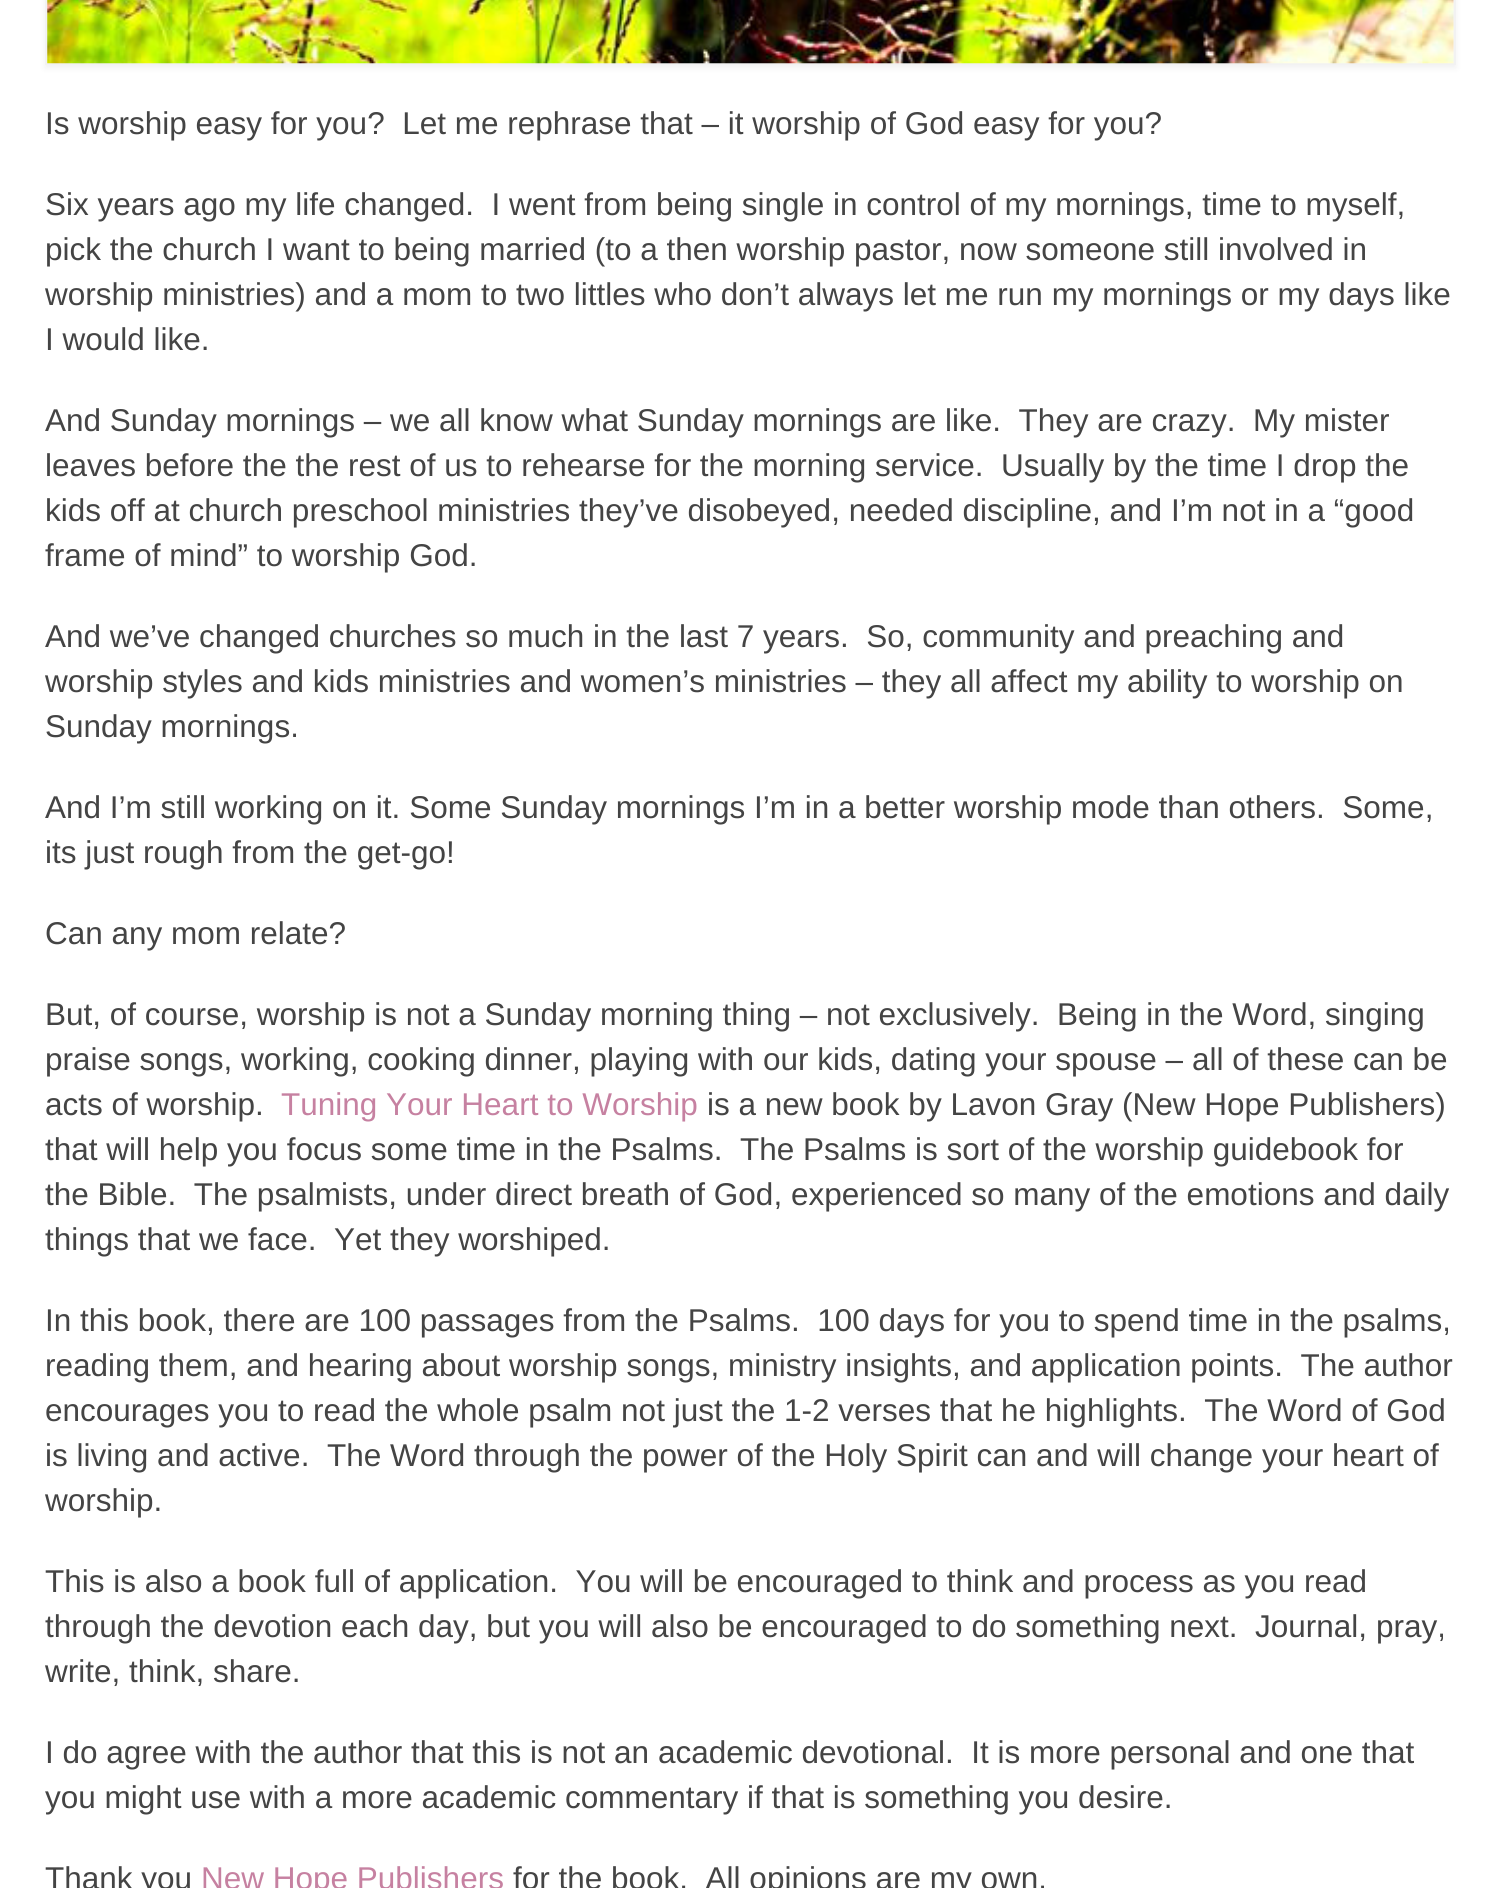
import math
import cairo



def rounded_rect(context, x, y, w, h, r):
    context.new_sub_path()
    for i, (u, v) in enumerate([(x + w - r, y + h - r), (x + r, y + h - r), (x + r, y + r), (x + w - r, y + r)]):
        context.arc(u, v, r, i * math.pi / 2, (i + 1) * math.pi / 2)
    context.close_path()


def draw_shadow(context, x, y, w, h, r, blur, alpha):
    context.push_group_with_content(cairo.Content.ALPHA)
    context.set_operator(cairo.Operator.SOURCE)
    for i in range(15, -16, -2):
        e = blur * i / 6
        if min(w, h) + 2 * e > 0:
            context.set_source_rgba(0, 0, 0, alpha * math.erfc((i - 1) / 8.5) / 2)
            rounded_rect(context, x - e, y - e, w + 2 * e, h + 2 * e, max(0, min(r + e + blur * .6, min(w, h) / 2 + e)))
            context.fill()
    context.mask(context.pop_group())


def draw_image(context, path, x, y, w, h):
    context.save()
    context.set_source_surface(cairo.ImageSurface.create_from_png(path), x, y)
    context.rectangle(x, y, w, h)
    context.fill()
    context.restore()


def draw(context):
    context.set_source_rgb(1, 1, 1)
    context.paint()
    context.set_source_rgb(0, 0, 0)
    draw_shadow(context, 45, -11, 1411, 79, 0, 3.5, 0.06)
    context.rectangle(46, -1, 1409, 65)
    context.set_source_rgb(242 / 255, 242 / 255, 242 / 255)
    context.stroke()
    draw_image(context, "images/1.png", 47, 0, 1407, 64)
    context.select_font_face("Liberation Sans")
    context.set_font_size(31.5)
    context.set_source_rgb(68 / 255, 68 / 255, 68 / 255)
    context.move_to(45, 134)
    context.show_text("Is worship easy for you?  Let me rephrase that – it worship of God easy for you?")
    context.move_to(45, 215)
    context.show_text("Six years ago my life changed.  I went from being single in control of my mornings, time to myself,")
    context.move_to(45, 260)
    context.show_text("pick the church I want to being married (to a then worship pastor, now someone still involved in")
    context.move_to(45, 305)
    context.show_text("worship ministries) and a mom to two littles who don’t always let me run my mornings or my days like")
    context.move_to(45, 350)
    context.show_text("I would like.")
    context.move_to(45, 431)
    context.show_text("And Sunday mornings – we all know what Sunday mornings are like.  They are crazy.  My mister")
    context.move_to(45, 476)
    context.show_text("leaves before the the rest of us to rehearse for the morning service.  Usually by the time I drop the")
    context.move_to(45, 521)
    context.show_text("kids off at church preschool ministries they’ve disobeyed, needed discipline, and I’m not in a “good")
    context.move_to(45, 566)
    context.show_text("frame of mind” to worship God.")
    context.move_to(45, 647)
    context.show_text("And we’ve changed churches so much in the last 7 years.  So, community and preaching and")
    context.move_to(45, 692)
    context.show_text("worship styles and kids ministries and women’s ministries – they all affect my ability to worship on")
    context.move_to(45, 737)
    context.show_text("Sunday mornings.")
    context.move_to(45, 818)
    context.show_text("And I’m still working on it. Some Sunday mornings I’m in a better worship mode than others.  Some,")
    context.move_to(45, 863)
    context.show_text("its just rough from the get-go!")
    context.move_to(45, 944)
    context.show_text("Can any mom relate?")
    context.move_to(45, 1025)
    context.show_text("But, of course, worship is not a Sunday morning thing – not exclusively.  Being in the Word, singing")
    context.move_to(45, 1070)
    context.show_text("praise songs, working, cooking dinner, playing with our kids, dating your spouse – all of these can be")
    context.move_to(45, 1115)
    context.show_text("acts of worship.")
    context.set_source_rgb(198 / 255, 129 / 255, 161 / 255)
    context.move_to(281, 1115)
    context.show_text("Tuning Your Heart to Worship")
    context.set_source_rgb(68 / 255, 68 / 255, 68 / 255)
    context.move_to(707, 1115)
    context.show_text("is a new book by Lavon Gray (New Hope Publishers)")
    context.move_to(45, 1160)
    context.show_text("that will help you focus some time in the Psalms.  The Psalms is sort of the worship guidebook for")
    context.move_to(45, 1205)
    context.show_text("the Bible.  The psalmists, under direct breath of God, experienced so many of the emotions and daily")
    context.move_to(45, 1250)
    context.show_text("things that we face.  Yet they worshiped.")
    context.move_to(45, 1331)
    context.show_text("In this book, there are 100 passages from the Psalms.  100 days for you to spend time in the psalms,")
    context.move_to(45, 1376)
    context.show_text("reading them, and hearing about worship songs, ministry insights, and application points.  The author")
    context.move_to(45, 1421)
    context.show_text("encourages you to read the whole psalm not just the 1-2 verses that he highlights.  The Word of God")
    context.move_to(45, 1466)
    context.show_text("is living and active.  The Word through the power of the Holy Spirit can and will change your heart of")
    context.move_to(45, 1511)
    context.show_text("worship.")
    context.move_to(45, 1592)
    context.show_text("This is also a book full of application.  You will be encouraged to think and process as you read")
    context.move_to(45, 1637)
    context.show_text("through the devotion each day, but you will also be encouraged to do something next.  Journal, pray,")
    context.move_to(45, 1682)
    context.show_text("write, think, share.")
    context.move_to(45, 1763)
    context.show_text("I do agree with the author that this is not an academic devotional.  It is more personal and one that")
    context.move_to(45, 1808)
    context.show_text("you might use with a more academic commentary if that is something you desire.")
    context.move_to(45, 1889)
    context.show_text("Thank you")
    context.set_source_rgb(198 / 255, 129 / 255, 161 / 255)
    context.move_to(201, 1889)
    context.show_text("New Hope Publishers")
    context.set_source_rgb(68 / 255, 68 / 255, 68 / 255)
    context.move_to(513, 1889)
    context.show_text("for the book.  All opinions are my own.")


surface = cairo.ImageSurface(cairo.Format.RGB24, 1499, 1888)
context = cairo.Context(surface)
options = cairo.FontOptions()
options.set_hint_metrics(cairo.HintMetrics.OFF)
options.set_hint_style(cairo.HintStyle.NONE)
context.set_font_options(options)
context.set_miter_limit(4)
draw(context)
surface.write_to_png("out.png")
